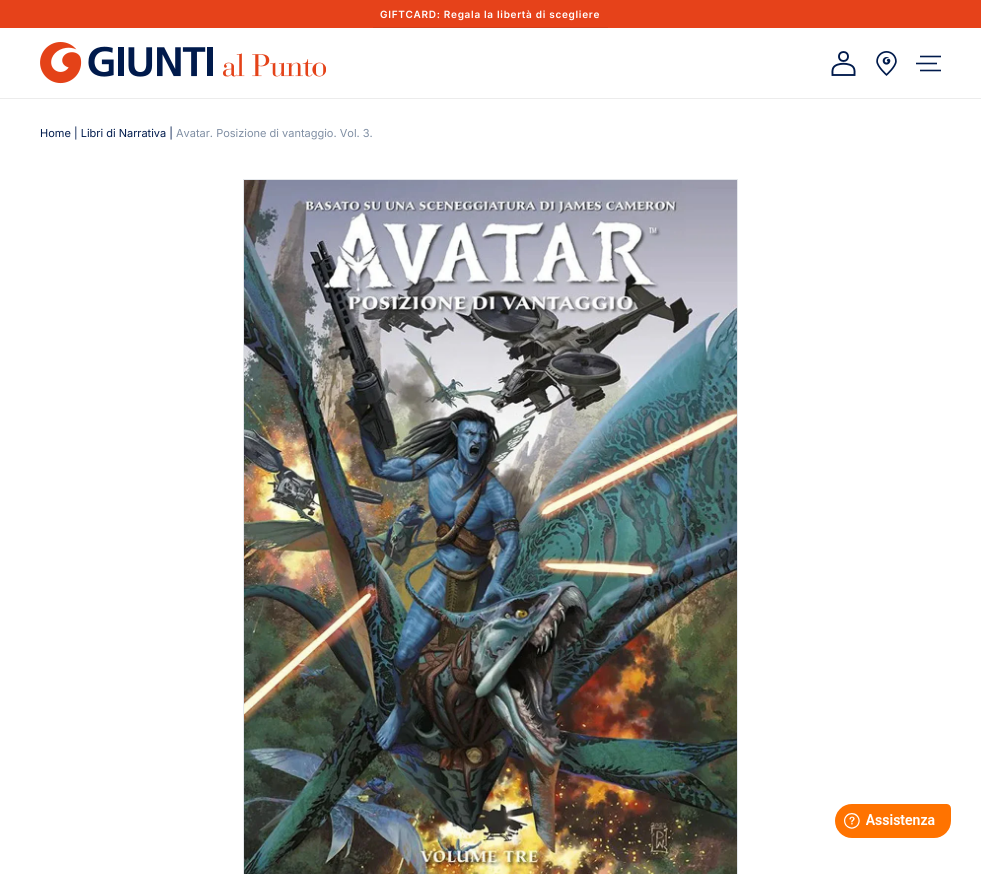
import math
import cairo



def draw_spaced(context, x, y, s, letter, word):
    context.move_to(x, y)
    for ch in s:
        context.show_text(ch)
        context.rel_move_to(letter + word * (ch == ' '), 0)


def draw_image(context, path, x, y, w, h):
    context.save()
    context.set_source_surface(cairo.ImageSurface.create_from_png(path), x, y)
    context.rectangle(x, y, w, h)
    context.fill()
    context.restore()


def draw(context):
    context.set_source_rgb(1, 1, 1)
    context.paint()
    context.set_source_rgb(230 / 255, 66 / 255, 26 / 255)
    context.rectangle(0, 0, 981, 28)
    context.fill()
    context.set_source_rgb(213 / 255, 62 / 255, 25 / 255)
    context.rectangle(373, 27, 235, 1)
    context.fill()
    context.set_source_rgb(236 / 255, 236 / 255, 236 / 255)
    context.rectangle(0, 98, 981, 1)
    context.fill()
    draw_image(context, "images/1.png", 40, 42, 286, 42)
    context.arc(843.5, 56.5, 4.5, 0, 2 * math.pi)
    context.set_source_rgb(0, 26 / 255, 76 / 255)
    context.set_line_width(1.9)
    context.stroke()
    context.new_path()
    context.move_to(832.5, 75)
    context.curve_to(832.5, 72.5, 832, 70, 833.5, 67.5)
    context.curve_to(836.5, 62.5, 850.5, 62.5, 853.5, 67.5)
    context.curve_to(855, 70, 854.5, 72.5, 854.5, 75)
    context.close_path()
    context.stroke()
    draw_image(context, "images/2.png", 876, 51, 21, 25)
    context.new_path()
    context.move_to(920, 56.5)
    context.line_to(941, 56.5)
    context.move_to(916, 63.5)
    context.line_to(937, 63.5)
    context.move_to(920, 70.5)
    context.line_to(941, 70.5)
    context.set_line_width(1.6)
    context.stroke()
    context.rectangle(243.5, 179.5, 494, 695)
    context.set_source_rgb(229 / 255, 232 / 255, 236 / 255)
    context.set_line_width(1)
    context.stroke()
    draw_image(context, "images/3.png", 244, 180, 493, 694)
    draw_image(context, "images/4.png", 835, 804, 116, 34)
    context.select_font_face("Inter SemiBold")
    context.set_font_size(10)
    context.set_source_rgb(1, 1, 1)
    draw_spaced(context, 380, 18, "GIFTCARD: Regala la libertà di scegliere", 0.7, 0)
    context.select_font_face("Inter")
    context.set_font_size(11)
    context.set_source_rgb(0, 26 / 255, 76 / 255)
    context.move_to(40, 137)
    context.show_text("Home | Libri di Narrativa |")
    context.set_source_rgb(127 / 255, 142 / 255, 163 / 255)
    context.move_to(176, 137)
    context.show_text("Avatar. Posizione di vantaggio. Vol. 3.")


surface = cairo.ImageSurface(cairo.Format.RGB24, 981, 874)
context = cairo.Context(surface)
options = cairo.FontOptions()
options.set_hint_metrics(cairo.HintMetrics.OFF)
options.set_hint_style(cairo.HintStyle.NONE)
context.set_font_options(options)
context.set_miter_limit(4)
draw(context)
surface.write_to_png("out.png")
